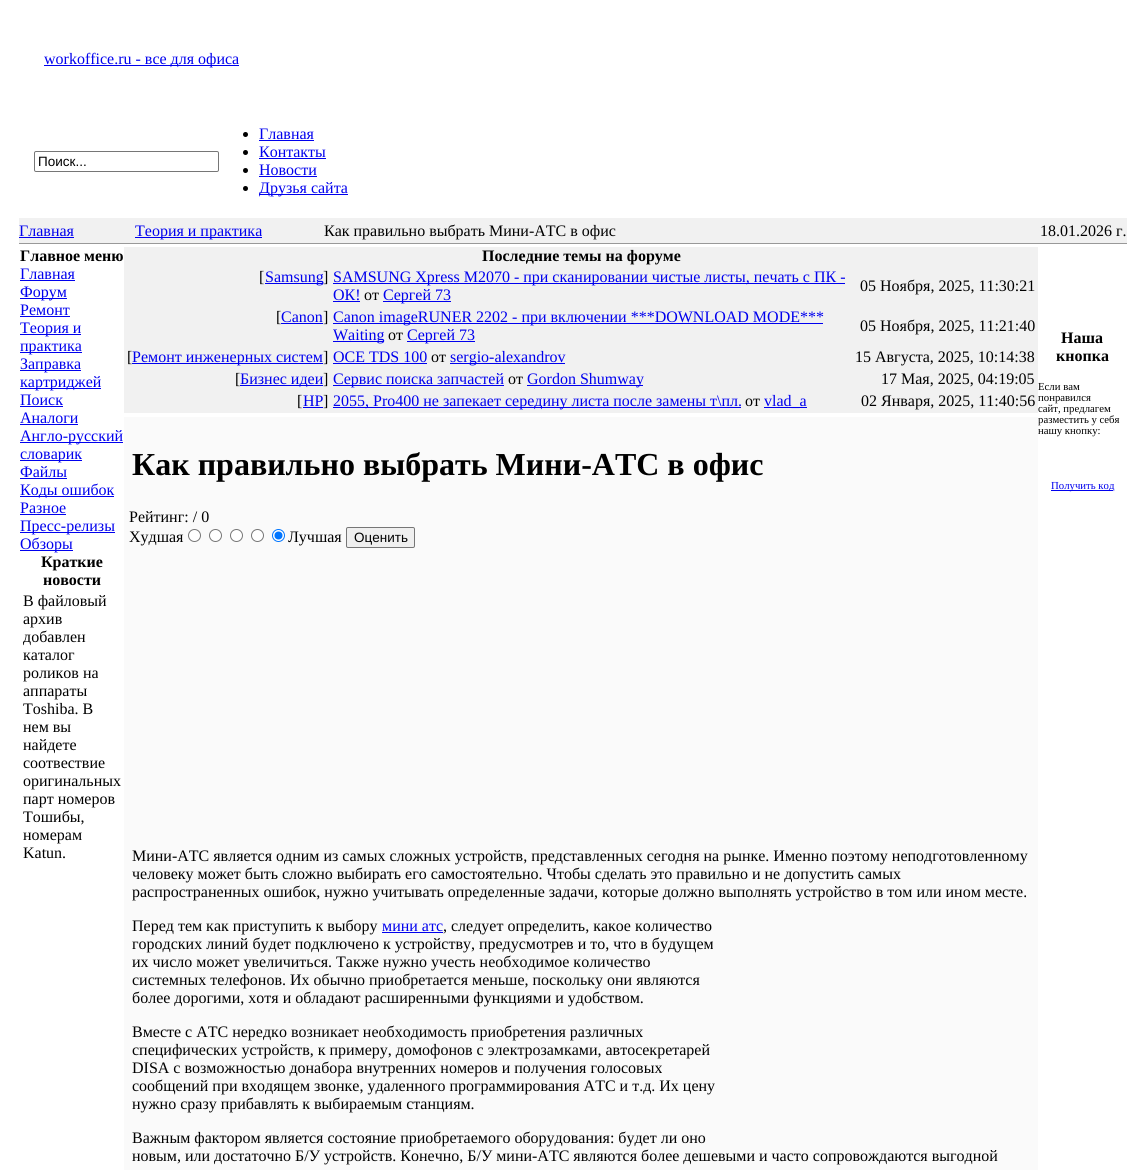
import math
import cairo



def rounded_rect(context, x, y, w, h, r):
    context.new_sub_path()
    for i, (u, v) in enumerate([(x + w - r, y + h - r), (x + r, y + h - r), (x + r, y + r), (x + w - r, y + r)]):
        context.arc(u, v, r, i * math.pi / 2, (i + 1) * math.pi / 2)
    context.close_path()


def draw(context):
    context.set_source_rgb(1, 1, 1)
    context.paint()
    context.set_source_rgb(0, 0, 238 / 255)
    context.rectangle(44, 65, 195, 1)
    context.fill()
    rounded_rect(context, 34.5, 151.5, 184, 20, 1.5)
    context.set_source_rgb(118 / 255, 118 / 255, 118 / 255)
    context.set_line_width(1)
    context.stroke()
    context.set_source_rgb(0, 0, 0)
    context.arc(245.5, 134.5, 2.5, 0, 2 * math.pi)
    context.fill()
    context.set_source_rgb(0, 0, 238 / 255)
    context.rectangle(259, 140, 55, 1)
    context.fill()
    context.set_source_rgb(0, 0, 0)
    context.arc(245.5, 152.5, 2.5, 0, 2 * math.pi)
    context.fill()
    context.set_source_rgb(0, 0, 238 / 255)
    context.rectangle(259, 158, 67, 1)
    context.fill()
    context.set_source_rgb(0, 0, 0)
    context.arc(245.5, 170.5, 2.5, 0, 2 * math.pi)
    context.fill()
    context.set_source_rgb(0, 0, 238 / 255)
    context.rectangle(259, 176, 58, 1)
    context.fill()
    context.set_source_rgb(0, 0, 0)
    context.arc(245.5, 188.5, 2.5, 0, 2 * math.pi)
    context.fill()
    context.set_source_rgb(0, 0, 238 / 255)
    context.rectangle(259, 194, 89, 1)
    context.fill()
    context.set_source_rgb(241 / 255, 241 / 255, 241 / 255)
    context.rectangle(19, 218, 1108, 25)
    context.fill()
    context.set_source_rgb(153 / 255, 153 / 255, 153 / 255)
    context.rectangle(19, 243, 1108, 1)
    context.fill()
    context.set_source_rgb(0, 0, 238 / 255)
    context.rectangle(19, 237, 55, 1)
    context.fill()
    context.rectangle(135, 237, 127, 1)
    context.fill()
    context.rectangle(20, 280, 55, 1)
    context.fill()
    context.rectangle(20, 298, 47, 1)
    context.fill()
    context.rectangle(20, 316, 50, 1)
    context.fill()
    context.rectangle(20, 334, 61, 1)
    context.fill()
    context.rectangle(20, 352, 62, 1)
    context.fill()
    context.rectangle(20, 370, 61, 1)
    context.fill()
    context.rectangle(20, 388, 81, 1)
    context.fill()
    context.rectangle(20, 406, 43, 1)
    context.fill()
    context.rectangle(20, 424, 58, 1)
    context.fill()
    context.rectangle(20, 442, 103, 1)
    context.fill()
    context.rectangle(20, 460, 62, 1)
    context.fill()
    context.rectangle(20, 478, 47, 1)
    context.fill()
    context.rectangle(20, 496, 94, 1)
    context.fill()
    context.rectangle(20, 514, 46, 1)
    context.fill()
    context.rectangle(20, 532, 95, 1)
    context.fill()
    context.rectangle(20, 550, 53, 1)
    context.fill()
    context.set_source_rgb(250 / 255, 250 / 255, 250 / 255)
    context.rectangle(124, 417, 914, 753)
    context.fill()
    context.set_source_rgb(241 / 255, 241 / 255, 241 / 255)
    context.rectangle(124, 247, 914, 166)
    context.fill()
    context.set_source_rgb(0, 0, 238 / 255)
    context.rectangle(265, 283, 58, 1)
    context.fill()
    context.rectangle(333, 283, 512, 1)
    context.fill()
    context.rectangle(333, 301, 27, 1)
    context.fill()
    context.rectangle(383, 301, 68, 1)
    context.fill()
    context.rectangle(281, 323, 42, 1)
    context.fill()
    context.rectangle(333, 323, 490, 1)
    context.fill()
    context.rectangle(333, 341, 51, 1)
    context.fill()
    context.rectangle(407, 341, 68, 1)
    context.fill()
    context.rectangle(132, 363, 191, 1)
    context.fill()
    context.rectangle(333, 363, 94, 1)
    context.fill()
    context.rectangle(450, 363, 115, 1)
    context.fill()
    context.rectangle(240, 385, 83, 1)
    context.fill()
    context.rectangle(333, 385, 171, 1)
    context.fill()
    context.rectangle(527, 385, 116, 1)
    context.fill()
    context.rectangle(303, 407, 20, 1)
    context.fill()
    context.rectangle(333, 407, 408, 1)
    context.fill()
    context.rectangle(764, 407, 43, 1)
    context.fill()
    context.set_source_rgb(1, 1, 1)
    context.arc(194.5, 535.5, 6, 0, 2 * math.pi)
    context.fill_preserve()
    context.set_source_rgb(118 / 255, 118 / 255, 118 / 255)
    context.stroke()
    context.set_source_rgb(1, 1, 1)
    context.arc(215.5, 535.5, 6, 0, 2 * math.pi)
    context.fill_preserve()
    context.set_source_rgb(118 / 255, 118 / 255, 118 / 255)
    context.stroke()
    context.set_source_rgb(1, 1, 1)
    context.arc(236.5, 535.5, 6, 0, 2 * math.pi)
    context.fill_preserve()
    context.set_source_rgb(118 / 255, 118 / 255, 118 / 255)
    context.stroke()
    context.set_source_rgb(1, 1, 1)
    context.arc(257.5, 535.5, 6, 0, 2 * math.pi)
    context.fill_preserve()
    context.set_source_rgb(118 / 255, 118 / 255, 118 / 255)
    context.stroke()
    context.set_source_rgb(1, 1, 1)
    context.arc(278.5, 535.5, 6, 0, 2 * math.pi)
    context.fill_preserve()
    context.set_source_rgb(0, 117 / 255, 1)
    context.stroke()
    context.arc(278.5, 535.5, 4, 0, 2 * math.pi)
    context.fill()
    context.set_source_rgb(239 / 255, 239 / 255, 239 / 255)
    rounded_rect(context, 346.5, 527.5, 68, 20, 1.5)
    context.fill_preserve()
    context.set_source_rgb(118 / 255, 118 / 255, 118 / 255)
    context.stroke()
    context.set_source_rgb(0, 0, 238 / 255)
    context.rectangle(382, 932, 61, 1)
    context.fill()
    context.rectangle(1051, 490, 62, 1)
    context.fill()
    context.select_font_face("Liberation Serif")
    context.set_font_size(16)
    context.move_to(44, 64)
    context.show_text("workoffice.ru - все для офиса")
    context.select_font_face("Liberation Sans")
    context.set_font_size(13.5)
    context.set_source_rgb(0, 0, 0)
    context.move_to(38, 166)
    context.show_text("Поиск...")
    context.select_font_face("Liberation Serif")
    context.set_font_size(16)
    context.set_source_rgb(0, 0, 238 / 255)
    context.move_to(259, 139)
    context.show_text("Главная")
    context.move_to(259, 157)
    context.show_text("Контакты")
    context.move_to(259, 175)
    context.show_text("Новости")
    context.move_to(259, 193)
    context.show_text("Друзья сайта")
    context.move_to(19, 236)
    context.show_text("Главная")
    context.move_to(135, 236)
    context.show_text("Теория и практика")
    context.set_source_rgb(0, 0, 0)
    context.move_to(324, 236)
    context.show_text("Как правильно выбрать Мини-АТС в офис")
    context.move_to(1040, 236)
    context.show_text("18.01.2026 г.")
    context.select_font_face("Liberation Serif", cairo.FontSlant.NORMAL, cairo.FontWeight.BOLD)
    context.move_to(20, 261)
    context.show_text("Главное меню")
    context.select_font_face("Liberation Serif")
    context.set_source_rgb(0, 0, 238 / 255)
    context.move_to(20, 279)
    context.show_text("Главная")
    context.move_to(20, 297)
    context.show_text("Форум")
    context.move_to(20, 315)
    context.show_text("Ремонт")
    context.move_to(20, 333)
    context.show_text("Теория и")
    context.move_to(20, 351)
    context.show_text("практика")
    context.move_to(20, 369)
    context.show_text("Заправка")
    context.move_to(20, 387)
    context.show_text("картриджей")
    context.move_to(20, 405)
    context.show_text("Поиск")
    context.move_to(20, 423)
    context.show_text("Аналоги")
    context.move_to(20, 441)
    context.show_text("Англо-русский")
    context.move_to(20, 459)
    context.show_text("словарик")
    context.move_to(20, 477)
    context.show_text("Файлы")
    context.move_to(20, 495)
    context.show_text("Коды ошибок")
    context.move_to(20, 513)
    context.show_text("Разное")
    context.move_to(20, 531)
    context.show_text("Пресс-релизы")
    context.move_to(20, 549)
    context.show_text("Обзоры")
    context.select_font_face("Liberation Serif", cairo.FontSlant.NORMAL, cairo.FontWeight.BOLD)
    context.set_source_rgb(0, 0, 0)
    context.move_to(41, 567)
    context.show_text("Краткие")
    context.move_to(43, 585)
    context.show_text("новости")
    context.select_font_face("Liberation Serif")
    context.move_to(23, 606)
    context.show_text("В файловый")
    context.move_to(23, 624)
    context.show_text("архив")
    context.move_to(23, 642)
    context.show_text("добавлен")
    context.move_to(23, 660)
    context.show_text("каталог")
    context.move_to(23, 678)
    context.show_text("роликов на")
    context.move_to(23, 696)
    context.show_text("аппараты")
    context.move_to(23, 714)
    context.show_text("Toshiba. В")
    context.move_to(23, 732)
    context.show_text("нем вы")
    context.move_to(23, 750)
    context.show_text("найдете")
    context.move_to(23, 768)
    context.show_text("соотвествие")
    context.move_to(23, 786)
    context.show_text("оригинальных")
    context.move_to(23, 804)
    context.show_text("парт номеров")
    context.move_to(23, 822)
    context.show_text("Тошибы,")
    context.move_to(23, 840)
    context.show_text("номерам")
    context.move_to(23, 858)
    context.show_text("Katun.")
    context.select_font_face("Liberation Serif", cairo.FontSlant.NORMAL, cairo.FontWeight.BOLD)
    context.move_to(482, 261)
    context.show_text("Последние темы на форуме")
    context.select_font_face("Liberation Serif")
    context.move_to(259, 282)
    context.show_text("[")
    context.set_source_rgb(0, 0, 238 / 255)
    context.move_to(265, 282)
    context.show_text("Samsung")
    context.set_source_rgb(0, 0, 0)
    context.move_to(323, 282)
    context.show_text("]")
    context.set_source_rgb(0, 0, 238 / 255)
    context.move_to(333, 282)
    context.show_text("SAMSUNG Xpress M2070 - при сканировании чистые листы, печать с ПК -")
    context.move_to(333, 300)
    context.show_text("ОК!")
    context.set_source_rgb(0, 0, 0)
    context.move_to(364, 300)
    context.show_text("от")
    context.set_source_rgb(0, 0, 238 / 255)
    context.move_to(383, 300)
    context.show_text("Сергей 73")
    context.set_source_rgb(0, 0, 0)
    context.move_to(860, 291)
    context.show_text("05 Ноября, 2025, 11:30:21")
    context.move_to(276, 322)
    context.show_text("[")
    context.set_source_rgb(0, 0, 238 / 255)
    context.move_to(281, 322)
    context.show_text("Canon")
    context.set_source_rgb(0, 0, 0)
    context.move_to(323, 322)
    context.show_text("]")
    context.set_source_rgb(0, 0, 238 / 255)
    context.move_to(333, 322)
    context.show_text("Canon imageRUNER 2202 - при включении ***DOWNLOAD MODE***")
    context.move_to(333, 340)
    context.show_text("Waiting")
    context.set_source_rgb(0, 0, 0)
    context.move_to(388, 340)
    context.show_text("от")
    context.set_source_rgb(0, 0, 238 / 255)
    context.move_to(407, 340)
    context.show_text("Сергей 73")
    context.set_source_rgb(0, 0, 0)
    context.move_to(860, 331)
    context.show_text("05 Ноября, 2025, 11:21:40")
    context.move_to(127, 362)
    context.show_text("[")
    context.set_source_rgb(0, 0, 238 / 255)
    context.move_to(132, 362)
    context.show_text("Ремонт инженерных систем")
    context.set_source_rgb(0, 0, 0)
    context.move_to(323, 362)
    context.show_text("]")
    context.set_source_rgb(0, 0, 238 / 255)
    context.move_to(333, 362)
    context.show_text("OCE TDS 100")
    context.set_source_rgb(0, 0, 0)
    context.move_to(431, 362)
    context.show_text("от")
    context.set_source_rgb(0, 0, 238 / 255)
    context.move_to(450, 362)
    context.show_text("sergio-alexandrov")
    context.set_source_rgb(0, 0, 0)
    context.move_to(855, 362)
    context.show_text("15 Августа, 2025, 10:14:38")
    context.move_to(235, 384)
    context.show_text("[")
    context.set_source_rgb(0, 0, 238 / 255)
    context.move_to(240, 384)
    context.show_text("Бизнес идеи")
    context.set_source_rgb(0, 0, 0)
    context.move_to(323, 384)
    context.show_text("]")
    context.set_source_rgb(0, 0, 238 / 255)
    context.move_to(333, 384)
    context.show_text("Сервис поиска запчастей")
    context.set_source_rgb(0, 0, 0)
    context.move_to(508, 384)
    context.show_text("от")
    context.set_source_rgb(0, 0, 238 / 255)
    context.move_to(527, 384)
    context.show_text("Gordon Shumway")
    context.set_source_rgb(0, 0, 0)
    context.move_to(881, 384)
    context.show_text("17 Мая, 2025, 04:19:05")
    context.move_to(297, 406)
    context.show_text("[")
    context.set_source_rgb(0, 0, 238 / 255)
    context.move_to(303, 406)
    context.show_text("HP")
    context.set_source_rgb(0, 0, 0)
    context.move_to(323, 406)
    context.show_text("]")
    context.set_source_rgb(0, 0, 238 / 255)
    context.move_to(333, 406)
    context.show_text("2055, Pro400 не запекает середину листа после замены т\\пл.")
    context.set_source_rgb(0, 0, 0)
    context.move_to(745, 406)
    context.show_text("от")
    context.set_source_rgb(0, 0, 238 / 255)
    context.move_to(764, 406)
    context.show_text("vlad_a")
    context.set_source_rgb(0, 0, 0)
    context.move_to(861, 406)
    context.show_text("02 Января, 2025, 11:40:56")
    context.select_font_face("Liberation Serif", cairo.FontSlant.NORMAL, cairo.FontWeight.BOLD)
    context.set_font_size(32)
    context.move_to(132, 475)
    context.show_text("Как правильно выбрать Мини-АТС в офис")
    context.select_font_face("Liberation Serif")
    context.set_font_size(16)
    context.move_to(129, 522)
    context.show_text("Рейтинг: / 0")
    context.move_to(129, 542)
    context.show_text("Худшая")
    context.move_to(288, 542)
    context.show_text("Лучшая")
    context.select_font_face("Liberation Sans")
    context.set_font_size(13.5)
    context.move_to(354, 542)
    context.show_text("Оценить")
    context.select_font_face("Liberation Serif")
    context.set_font_size(16)
    context.move_to(132, 861)
    context.show_text("Мини-АТС является одним из самых сложных устройств, представленных сегодня на рынке. Именно поэтому неподготовленному")
    context.move_to(132, 879)
    context.show_text("человеку может быть сложно выбирать его самостоятельно. Чтобы сделать это правильно и не допустить самых")
    context.move_to(132, 897)
    context.show_text("распространенных ошибок, нужно учитывать определенные задачи, которые должно выполнять устройство в том или ином месте.")
    context.move_to(132, 931)
    context.show_text("Перед тем как приступить к выбору")
    context.set_source_rgb(0, 0, 238 / 255)
    context.move_to(382, 931)
    context.show_text("мини атс")
    context.set_source_rgb(0, 0, 0)
    context.move_to(443, 931)
    context.show_text(", следует определить, какое количество")
    context.move_to(132, 949)
    context.show_text("городских линий будет подключено к устройству, предусмотрев и то, что в будущем")
    context.move_to(132, 967)
    context.show_text("их число может увеличиться. Также нужно учесть необходимое количество")
    context.move_to(132, 985)
    context.show_text("системных телефонов. Их обычно приобретается меньше, поскольку они являются")
    context.move_to(132, 1003)
    context.show_text("более дорогими, хотя и обладают расширенными функциями и удобством.")
    context.move_to(132, 1037)
    context.show_text("Вместе с АТС нередко возникает необходимость приобретения различных")
    context.move_to(132, 1055)
    context.show_text("специфических устройств, к примеру, домофонов с электрозамками, автосекретарей")
    context.move_to(132, 1073)
    context.show_text("DISA с возможностью донабора внутренних номеров и получения голосовых")
    context.move_to(132, 1091)
    context.show_text("сообщений при входящем звонке, удаленного программирования АТС и т.д. Их цену")
    context.move_to(132, 1109)
    context.show_text("нужно сразу прибавлять к выбираемым станциям.")
    context.move_to(132, 1143)
    context.show_text("Важным фактором является состояние приобретаемого оборудования: будет ли оно")
    context.move_to(132, 1161)
    context.show_text("новым, или достаточно Б/У устройств. Конечно, Б/У мини-АТС являются более дешевыми и часто сопровождаются выгодной")
    context.select_font_face("Liberation Serif", cairo.FontSlant.NORMAL, cairo.FontWeight.BOLD)
    context.move_to(1061, 343)
    context.show_text("Наша")
    context.move_to(1056, 361)
    context.show_text("кнопка")
    context.select_font_face("Liberation Serif")
    context.set_font_size(10.75)
    context.move_to(1038, 390)
    context.show_text("Если вам")
    context.move_to(1038, 401)
    context.show_text("понравился")
    context.move_to(1038, 412)
    context.show_text("сайт, предлагем")
    context.move_to(1038, 423)
    context.show_text("разместить у себя")
    context.move_to(1038, 434)
    context.show_text("нашу кнопку:")
    context.set_source_rgb(0, 0, 238 / 255)
    context.move_to(1051, 489)
    context.show_text("Получить код")


surface = cairo.ImageSurface(cairo.Format.RGB24, 1146, 1170)
context = cairo.Context(surface)
options = cairo.FontOptions()
options.set_hint_metrics(cairo.HintMetrics.OFF)
options.set_hint_style(cairo.HintStyle.NONE)
context.set_font_options(options)
context.set_miter_limit(4)
draw(context)
surface.write_to_png("out.png")
